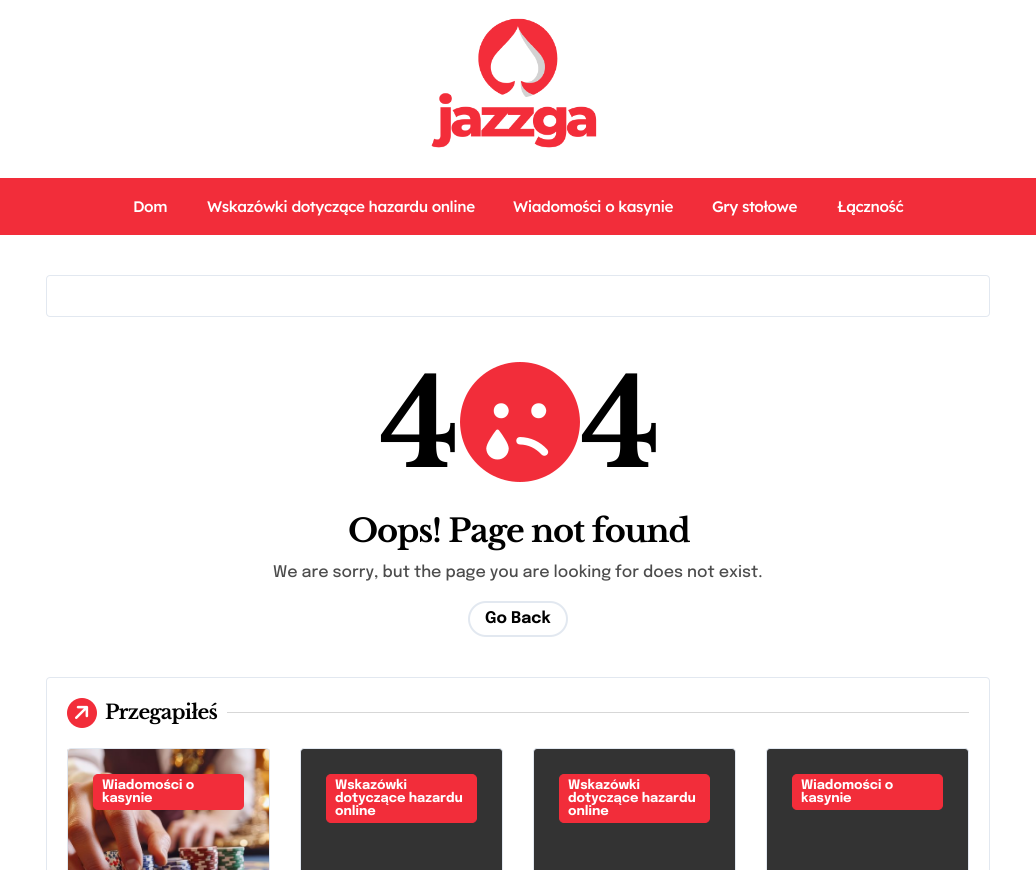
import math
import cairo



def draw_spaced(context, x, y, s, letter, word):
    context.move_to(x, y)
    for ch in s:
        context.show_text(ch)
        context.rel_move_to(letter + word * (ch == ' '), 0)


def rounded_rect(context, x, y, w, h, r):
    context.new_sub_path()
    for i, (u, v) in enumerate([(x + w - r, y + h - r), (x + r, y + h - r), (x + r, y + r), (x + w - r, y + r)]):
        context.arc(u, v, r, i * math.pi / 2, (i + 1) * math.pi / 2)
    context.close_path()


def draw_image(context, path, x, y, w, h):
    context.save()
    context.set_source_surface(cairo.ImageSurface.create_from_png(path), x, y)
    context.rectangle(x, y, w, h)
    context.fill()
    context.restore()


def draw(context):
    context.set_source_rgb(1, 1, 1)
    context.paint()
    draw_image(context, "images/1.png", 431, 18, 166, 130)
    context.set_source_rgb(242 / 255, 45 / 255, 58 / 255)
    context.rectangle(0, 178, 1036, 57)
    context.fill()
    rounded_rect(context, 46.5, 275.5, 943, 41, 3.5)
    context.set_source_rgb(226 / 255, 232 / 255, 240 / 255)
    context.set_line_width(1)
    context.stroke()
    draw_image(context, "images/2.png", 460, 362, 120, 120)
    rounded_rect(context, 469, 602, 98, 34, 17)
    context.set_line_width(2)
    context.stroke()
    rounded_rect(context, 46.5, 677.5, 943, 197, 3.5)
    context.set_line_width(1)
    context.stroke()
    context.set_source_rgb(242 / 255, 45 / 255, 58 / 255)
    context.arc(82, 713, 15, 0, 2 * math.pi)
    context.fill()
    draw_image(context, "images/3.png", 75, 705, 14, 14)
    context.set_source_rgb(215 / 255, 215 / 255, 215 / 255)
    context.rectangle(227, 712, 742, 1)
    context.fill()
    draw_image(context, "images/4.png", 67, 749, 203, 121)
    rounded_rect(context, 67.5, 748.5, 202, 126, 3.5)
    context.set_source_rgb(226 / 255, 232 / 255, 240 / 255)
    context.stroke()
    context.set_source_rgb(242 / 255, 45 / 255, 58 / 255)
    rounded_rect(context, 93.5, 774.5, 150, 35, 4.5)
    context.fill_preserve()
    context.stroke()
    context.set_source_rgb(51 / 255, 51 / 255, 51 / 255)
    rounded_rect(context, 300.5, 748.5, 202, 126, 3.5)
    context.fill_preserve()
    context.set_source_rgb(226 / 255, 232 / 255, 240 / 255)
    context.stroke()
    context.set_source_rgb(242 / 255, 45 / 255, 58 / 255)
    rounded_rect(context, 326.5, 774.5, 150, 48, 4.5)
    context.fill_preserve()
    context.stroke()
    context.set_source_rgb(51 / 255, 51 / 255, 51 / 255)
    rounded_rect(context, 533.5, 748.5, 202, 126, 3.5)
    context.fill_preserve()
    context.set_source_rgb(226 / 255, 232 / 255, 240 / 255)
    context.stroke()
    context.set_source_rgb(242 / 255, 45 / 255, 58 / 255)
    rounded_rect(context, 559.5, 774.5, 150, 48, 4.5)
    context.fill_preserve()
    context.stroke()
    context.set_source_rgb(51 / 255, 51 / 255, 51 / 255)
    rounded_rect(context, 766.5, 748.5, 202, 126, 3.5)
    context.fill_preserve()
    context.set_source_rgb(226 / 255, 232 / 255, 240 / 255)
    context.stroke()
    context.set_source_rgb(242 / 255, 45 / 255, 58 / 255)
    rounded_rect(context, 792.5, 774.5, 150, 35, 4.5)
    context.fill_preserve()
    context.stroke()
    context.select_font_face("Lexend Deca Medium")
    context.set_font_size(15.25)
    context.set_source_rgb(1, 1, 1)
    draw_spaced(context, 133, 212, "Dom", -0.45, 0)
    draw_spaced(context, 207, 212, "Wskazówki dotyczące hazardu online", -0.45, 0)
    draw_spaced(context, 513, 212, "Wiadomości o kasynie", -0.45, 0)
    draw_spaced(context, 712, 212, "Gry stołowe", -0.45, 0)
    draw_spaced(context, 837, 212, "Łączność", -0.45, 0)
    context.select_font_face("Libre Baskerville", cairo.FontSlant.NORMAL, cairo.FontWeight.BOLD)
    context.set_font_size(120)
    context.set_source_rgb(0, 0, 0)
    draw_spaced(context, 380, 467, "4", -4, 0)
    draw_spaced(context, 581, 467, "4", -4, 0)
    context.set_font_size(32)
    draw_spaced(context, 348, 542, "Oops! Page not found", -1.1, 0)
    context.select_font_face("Epilogue Medium")
    context.set_font_size(16)
    context.set_source_rgb(76 / 255, 76 / 255, 76 / 255)
    context.move_to(273, 577)
    context.show_text("We are sorry, but the page you are looking for does not exist.")
    context.select_font_face("Epilogue", cairo.FontSlant.NORMAL, cairo.FontWeight.BOLD)
    context.set_source_rgb(0, 0, 0)
    context.move_to(485, 623)
    context.show_text("Go Back")
    context.select_font_face("Libre Baskerville", cairo.FontSlant.NORMAL, cairo.FontWeight.BOLD)
    context.set_font_size(20)
    draw_spaced(context, 105, 719, "Przegapiłeś", -0.75, 0)
    context.select_font_face("Epilogue", cairo.FontSlant.NORMAL, cairo.FontWeight.BOLD)
    context.set_font_size(13)
    context.set_source_rgb(1, 1, 1)
    context.move_to(102, 789)
    context.show_text("Wiadomości o")
    context.move_to(102, 802)
    context.show_text("kasynie")
    context.move_to(335, 789)
    context.show_text("Wskazówki")
    context.move_to(335, 802)
    context.show_text("dotyczące hazardu")
    context.move_to(335, 815)
    context.show_text("online")
    context.move_to(568, 789)
    context.show_text("Wskazówki")
    context.move_to(568, 802)
    context.show_text("dotyczące hazardu")
    context.move_to(568, 815)
    context.show_text("online")
    context.move_to(801, 789)
    context.show_text("Wiadomości o")
    context.move_to(801, 802)
    context.show_text("kasynie")


surface = cairo.ImageSurface(cairo.Format.RGB24, 1036, 870)
context = cairo.Context(surface)
options = cairo.FontOptions()
options.set_hint_metrics(cairo.HintMetrics.OFF)
options.set_hint_style(cairo.HintStyle.NONE)
context.set_font_options(options)
context.set_miter_limit(4)
draw(context)
surface.write_to_png("out.png")
